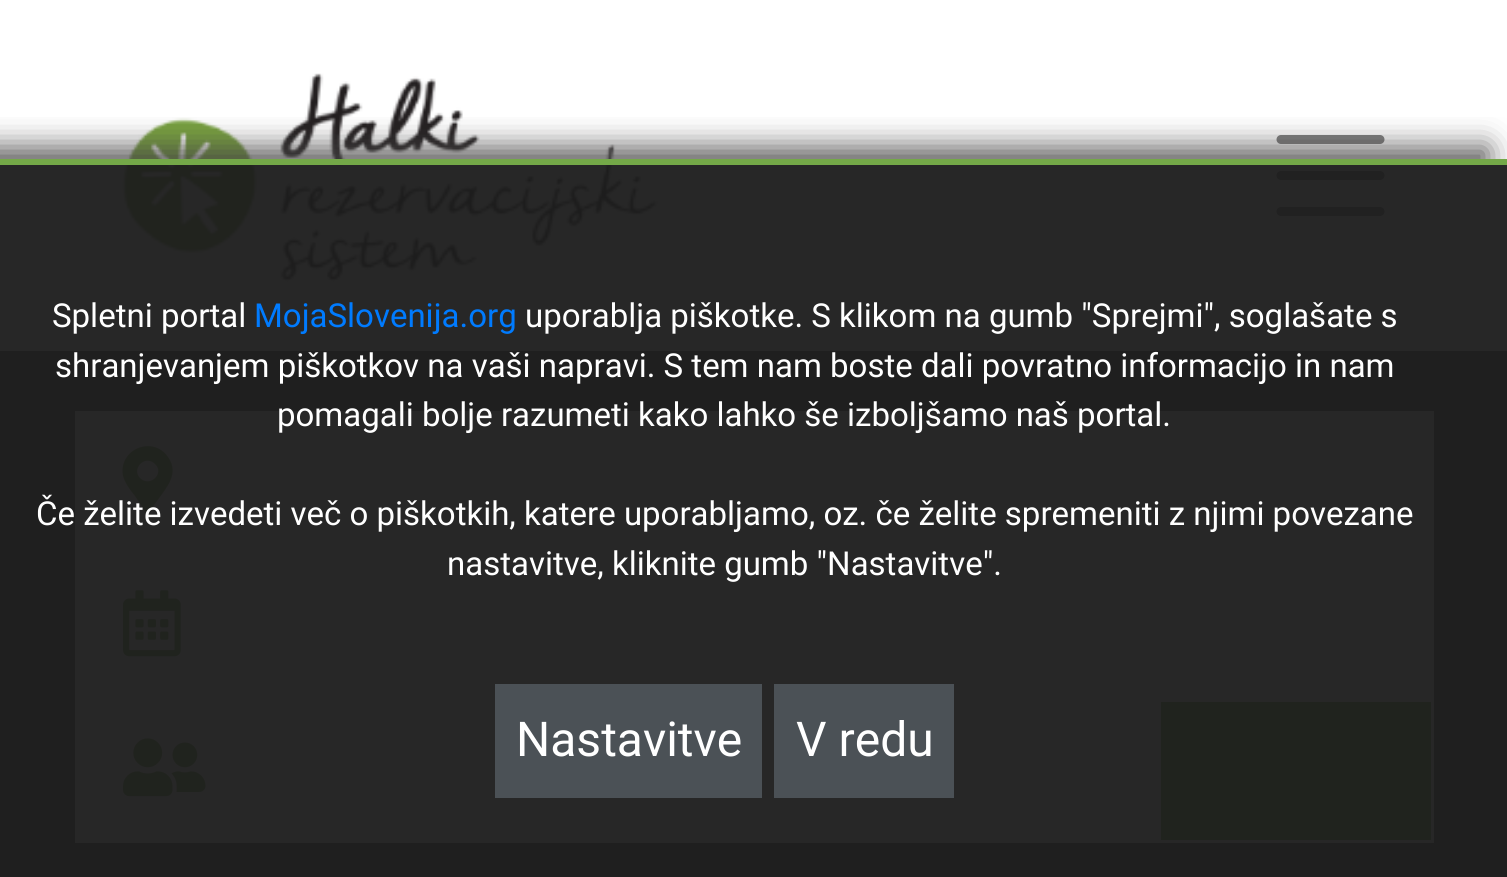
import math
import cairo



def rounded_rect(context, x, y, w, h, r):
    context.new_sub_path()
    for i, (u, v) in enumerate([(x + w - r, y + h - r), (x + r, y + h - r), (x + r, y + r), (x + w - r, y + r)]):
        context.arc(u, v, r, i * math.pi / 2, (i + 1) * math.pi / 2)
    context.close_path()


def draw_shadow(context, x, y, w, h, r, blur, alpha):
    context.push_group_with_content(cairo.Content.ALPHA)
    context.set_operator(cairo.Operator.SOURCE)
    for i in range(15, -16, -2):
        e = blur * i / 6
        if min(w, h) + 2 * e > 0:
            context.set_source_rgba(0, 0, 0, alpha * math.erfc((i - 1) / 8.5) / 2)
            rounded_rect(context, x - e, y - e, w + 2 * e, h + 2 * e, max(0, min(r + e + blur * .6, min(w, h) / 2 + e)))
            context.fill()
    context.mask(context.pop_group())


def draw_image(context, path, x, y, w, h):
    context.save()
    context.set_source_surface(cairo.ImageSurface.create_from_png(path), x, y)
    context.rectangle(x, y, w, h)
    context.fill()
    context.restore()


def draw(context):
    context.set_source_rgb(1, 1, 1)
    context.paint()
    draw_image(context, "images/1.png", 121, 73, 537, 209)
    context.new_path()
    context.move_to(1281, 139.5)
    context.line_to(1380, 139.5)
    context.move_to(1281, 175.5)
    context.line_to(1380, 175.5)
    context.move_to(1281, 211.5)
    context.line_to(1380, 211.5)
    context.set_source_rgb(128 / 255, 128 / 255, 128 / 255)
    context.set_line_width(9)
    context.set_line_cap(cairo.LineCap.ROUND)
    context.stroke()
    context.set_source_rgb(75 / 255, 81 / 255, 86 / 255)
    context.rectangle(0, 351, 1507, 526)
    context.fill()
    context.set_source_rgb(1, 1, 1)
    context.rectangle(75, 411, 1359, 432)
    context.fill()
    context.set_source_rgb(116 / 255, 168 / 255, 72 / 255)
    context.new_path()
    context.move_to(145, 511)
    context.line_to(135, 496)
    context.curve_to(130, 490, 125, 483, 123, 476)
    context.curve_to(118, 449, 153, 435, 168, 457)
    context.curve_to(180, 474, 166, 488, 157, 501)
    context.line_to(149, 512)
    context.curve_to(148, 513, 146, 512, 145, 511)
    context.close_path()
    context.move_to(140, 478)
    context.curve_to(150, 488, 165, 473, 155, 464)
    context.curve_to(145, 454, 131, 469, 140, 478)
    context.close_path()
    context.fill()
    draw_image(context, "images/2.png", 123, 590, 58, 67)
    draw_image(context, "images/3.png", 123, 738, 83, 59)
    context.rectangle(1161, 702, 270, 138)
    context.fill()
    context.save()
    context.rectangle(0, 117, 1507, 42)
    context.clip()
    context.set_source_rgb(70 / 255, 69 / 255, 69 / 255)
    draw_shadow(context, -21, 147, 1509, 720, 0, 15, 0.88)
    context.restore()
    context.set_source_rgba(29 / 255, 29 / 255, 29 / 255, 0.95)
    context.rectangle(0, 165, 1507, 712)
    context.fill()
    context.set_source_rgb(116 / 255, 168 / 255, 72 / 255)
    context.rectangle(0, 159, 1507, 6)
    context.fill()
    context.set_source_rgb(75 / 255, 81 / 255, 86 / 255)
    context.rectangle(495, 684, 267, 114)
    context.fill()
    context.rectangle(774, 684, 180, 114)
    context.fill()
    context.select_font_face("Roboto")
    context.set_font_size(33)
    context.set_source_rgb(1, 1, 1)
    context.move_to(52, 327)
    context.show_text("Spletni portal")
    context.set_source_rgb(0, 123 / 255, 1)
    context.move_to(254, 327)
    context.show_text("MojaSlovenija.org")
    context.set_source_rgb(1, 1, 1)
    context.move_to(525, 327)
    context.show_text("uporablja piškotke. S klikom na gumb \"Sprejmi\", soglašate s")
    context.move_to(55, 377)
    context.show_text("shranjevanjem piškotkov na vaši napravi. S tem nam boste dali povratno informacijo in nam")
    context.move_to(277, 426)
    context.show_text("pomagali bolje razumeti kako lahko še izboljšamo naš portal.")
    context.move_to(36, 525)
    context.show_text("Če želite izvedeti več o piškotkih, katere uporabljamo, oz. če želite spremeniti z njimi povezane")
    context.move_to(447, 575)
    context.show_text("nastavitve, kliknite gumb \"Nastavitve\".")
    context.set_font_size(48)
    context.move_to(516, 756)
    context.show_text("Nastavitve")
    context.move_to(796, 756)
    context.show_text("V redu")


surface = cairo.ImageSurface(cairo.Format.RGB24, 1507, 877)
context = cairo.Context(surface)
options = cairo.FontOptions()
options.set_hint_metrics(cairo.HintMetrics.OFF)
options.set_hint_style(cairo.HintStyle.NONE)
context.set_font_options(options)
context.set_miter_limit(4)
draw(context)
surface.write_to_png("out.png")
